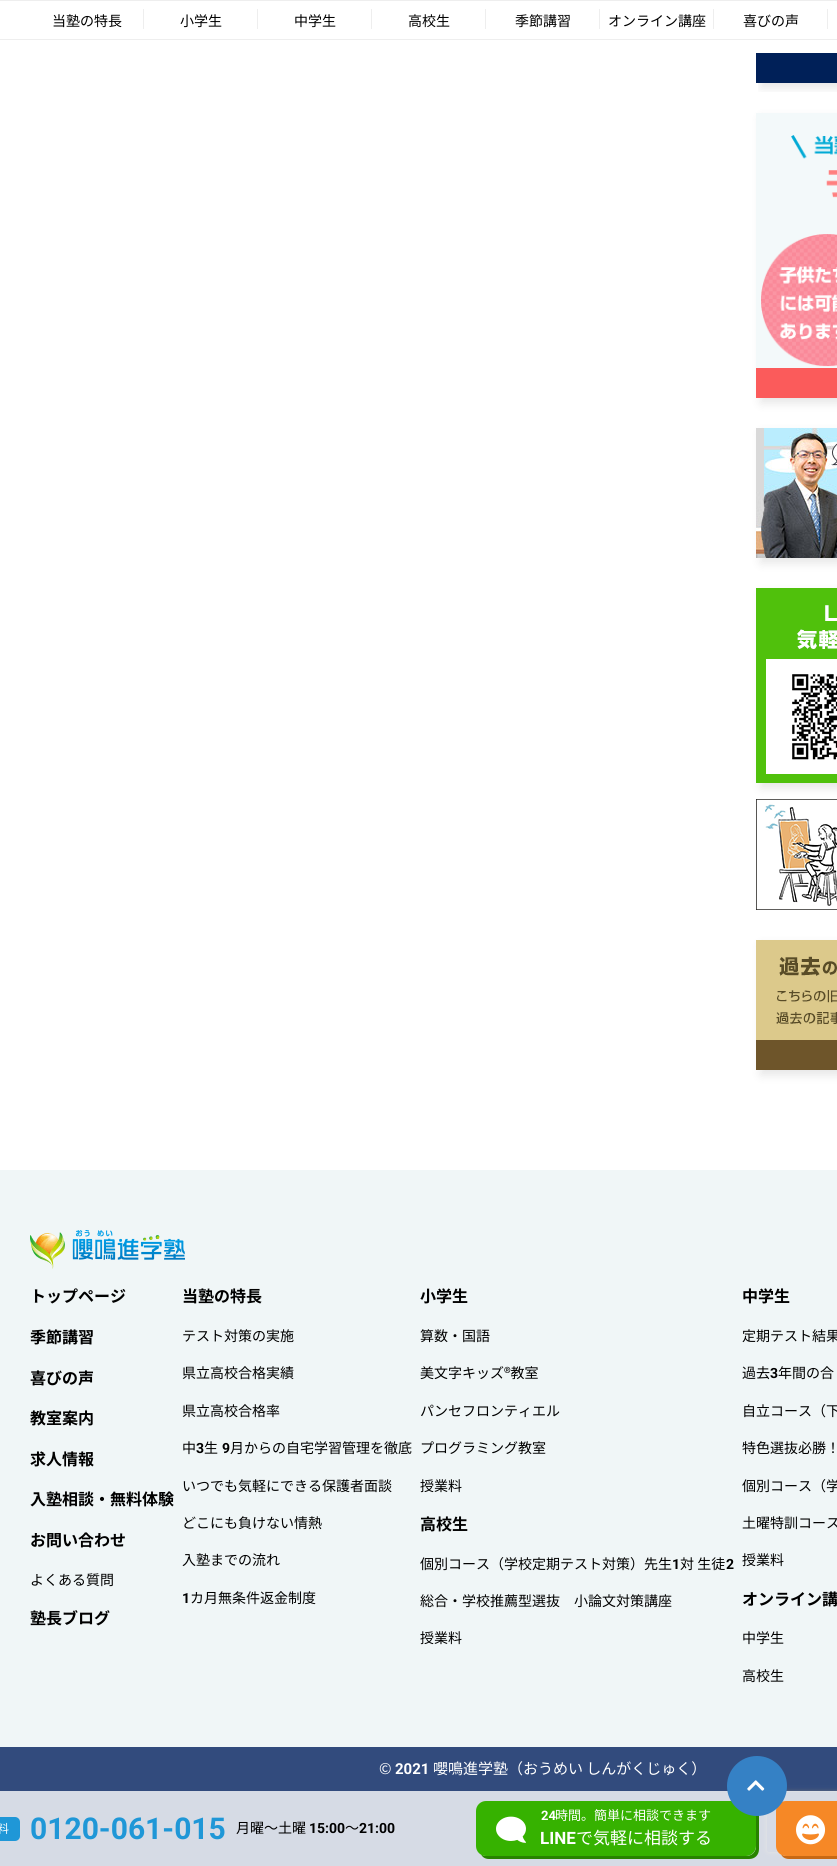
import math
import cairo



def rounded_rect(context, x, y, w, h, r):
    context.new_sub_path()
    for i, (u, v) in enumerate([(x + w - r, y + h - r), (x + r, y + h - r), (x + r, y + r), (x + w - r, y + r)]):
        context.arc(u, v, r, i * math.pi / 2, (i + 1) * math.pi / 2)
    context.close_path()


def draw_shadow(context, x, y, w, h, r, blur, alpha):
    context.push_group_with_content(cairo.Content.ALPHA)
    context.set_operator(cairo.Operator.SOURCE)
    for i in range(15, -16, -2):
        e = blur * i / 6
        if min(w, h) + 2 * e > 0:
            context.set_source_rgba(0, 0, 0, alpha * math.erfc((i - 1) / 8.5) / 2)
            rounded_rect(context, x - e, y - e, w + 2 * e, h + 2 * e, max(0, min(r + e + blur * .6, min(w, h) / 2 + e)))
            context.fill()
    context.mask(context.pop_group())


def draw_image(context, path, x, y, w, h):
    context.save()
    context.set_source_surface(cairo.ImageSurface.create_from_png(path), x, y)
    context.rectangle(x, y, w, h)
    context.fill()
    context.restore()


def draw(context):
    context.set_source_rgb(1, 1, 1)
    context.paint()
    context.save()
    context.rectangle(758, 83, 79, 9)
    context.clip()
    context.set_source_rgb(0, 0, 0)
    draw_shadow(context, 761, -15, 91, 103, 0, 5, 0.1)
    context.restore()
    context.set_source_rgb(1, 1, 1)
    context.rectangle(755, 1, 1, 38)
    context.fill()
    context.set_source_rgb(238 / 255, 238 / 255, 238 / 255)
    context.rectangle(0, 0, 837, 1)
    context.fill()
    context.rectangle(0, 39, 837, 1)
    context.fill()
    context.rectangle(143, 9, 1, 20)
    context.fill()
    context.rectangle(257, 9, 1, 20)
    context.fill()
    context.rectangle(371, 9, 1, 20)
    context.fill()
    context.rectangle(485, 9, 1, 20)
    context.fill()
    context.rectangle(599, 9, 1, 20)
    context.fill()
    context.rectangle(713, 9, 1, 20)
    context.fill()
    context.rectangle(827, 9, 1, 20)
    context.fill()
    context.set_source_rgb(0, 32 / 255, 88 / 255)
    context.rectangle(756, 53, 81, 30)
    context.fill()
    context.set_source_rgb(0, 0, 0)
    draw_shadow(context, 761, 118, 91, 285, 0, 5, 0.1)
    context.set_source_rgb(243 / 255, 249 / 255, 250 / 255)
    context.rectangle(756, 113, 81, 255)
    context.fill()
    draw_image(context, "images/1.png", 761, 135, 76, 232)
    context.set_source_rgb(251 / 255, 91 / 255, 91 / 255)
    context.rectangle(756, 368, 81, 30)
    context.fill()
    context.set_source_rgb(0, 0, 0)
    draw_shadow(context, 761, 433, 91, 130, 0, 5, 0.1)
    draw_image(context, "images/2.png", 756, 428, 81, 130)
    draw_shadow(context, 761, 593, 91, 195, 0, 5, 0.1)
    draw_image(context, "images/3.png", 756, 588, 81, 195)
    draw_image(context, "images/4.png", 756, 799, 81, 111)
    draw_shadow(context, 761, 945, 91, 130, 0, 5, 0.1)
    draw_image(context, "images/5.png", 756, 940, 81, 100)
    context.set_source_rgb(110 / 255, 85 / 255, 42 / 255)
    context.rectangle(756, 1040, 81, 30)
    context.fill()
    context.set_source_rgb(240 / 255, 246 / 255, 247 / 255)
    context.rectangle(0, 1170, 837, 577)
    context.fill()
    draw_image(context, "images/6.png", 30, 1230, 155, 39)
    context.set_source_rgb(50 / 255, 75 / 255, 125 / 255)
    context.rectangle(0, 1747, 837, 119)
    context.fill()
    context.save()
    context.set_fill_rule(cairo.FillRule.EVEN_ODD)
    context.new_path()
    context.move_to(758, 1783)
    context.line_to(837, 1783)
    context.line_to(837, 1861)
    context.line_to(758, 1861)
    context.close_path()
    context.move_to(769, 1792)
    context.line_to(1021, 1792)
    context.curve_to(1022, 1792, 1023, 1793, 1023, 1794)
    context.line_to(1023, 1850)
    context.curve_to(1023, 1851, 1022, 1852, 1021, 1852)
    context.line_to(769, 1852)
    context.curve_to(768, 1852, 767, 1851, 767, 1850)
    context.line_to(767, 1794)
    context.curve_to(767, 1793, 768, 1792, 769, 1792)
    context.close_path()
    context.clip()
    context.set_source_rgb(128 / 255, 128 / 255, 128 / 255)
    draw_shadow(context, 767, 1792, 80, 60, 2, 2.5, 1)
    context.restore()
    context.set_source_rgba(1, 1, 1, 0.8)
    context.rectangle(0, 1791, 837, 75)
    context.fill()
    context.set_source_rgb(40 / 255, 131 / 255, 0)
    context.new_path()
    context.move_to(481, 1854)
    context.curve_to(482, 1857, 485, 1859, 489, 1859)
    context.line_to(749, 1859)
    context.curve_to(755, 1859, 759, 1855, 759, 1849)
    context.line_to(759, 1814)
    context.curve_to(759, 1810, 757, 1807, 754, 1806)
    context.curve_to(755, 1807, 756, 1809, 756, 1811)
    context.line_to(756, 1846)
    context.curve_to(756, 1852, 752, 1856, 746, 1856)
    context.line_to(486, 1856)
    context.curve_to(484, 1856, 482, 1855, 481, 1854)
    context.close_path()
    context.fill()
    context.set_source_rgb(54 / 255, 178 / 255, 0)
    rounded_rect(context, 476, 1801, 280, 55, 10)
    context.fill()
    context.set_source_rgb(200 / 255, 105 / 255, 20 / 255)
    context.new_path()
    context.move_to(781, 1854)
    context.curve_to(782, 1857, 785, 1859, 789, 1859)
    context.line_to(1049, 1859)
    context.curve_to(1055, 1859, 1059, 1855, 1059, 1849)
    context.line_to(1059, 1814)
    context.curve_to(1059, 1810, 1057, 1807, 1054, 1806)
    context.curve_to(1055, 1807, 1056, 1809, 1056, 1811)
    context.line_to(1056, 1846)
    context.curve_to(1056, 1852, 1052, 1856, 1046, 1856)
    context.line_to(786, 1856)
    context.curve_to(784, 1856, 782, 1855, 781, 1854)
    context.close_path()
    context.fill()
    context.set_source_rgb(246 / 255, 136 / 255, 38 / 255)
    rounded_rect(context, 776, 1801, 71, 55, 10)
    context.fill()
    context.set_source_rgb(53 / 255, 129 / 255, 197 / 255)
    context.arc(757, 1786, 30, 0, 2 * math.pi)
    context.fill()
    draw_image(context, "images/7.png", 747, 1780, 18, 11)
    context.set_source_rgb(31 / 255, 151 / 255, 215 / 255)
    rounded_rect(context, -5, 1817, 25, 24, 5)
    context.fill()
    draw_image(context, "images/8.png", 496, 1816, 30, 27)
    draw_image(context, "images/9.png", 796, 1815, 30, 30)
    context.select_font_face("Noto Sans JP")
    context.set_font_size(14)
    context.set_source_rgb(0, 0, 0)
    context.move_to(52, 26)
    context.show_text("当塾の特長")
    context.move_to(180, 26)
    context.show_text("小学生")
    context.move_to(294, 26)
    context.show_text("中学生")
    context.move_to(408, 26)
    context.show_text("高校生")
    context.move_to(515, 26)
    context.show_text("季節講習")
    context.move_to(608, 26)
    context.show_text("オンライン講座")
    context.move_to(743, 26)
    context.show_text("喜びの声")
    context.select_font_face("Noto Sans JP", cairo.FontSlant.NORMAL, cairo.FontWeight.BOLD)
    context.set_font_size(16)
    context.move_to(30, 1302)
    context.show_text("トップページ")
    context.move_to(30, 1343)
    context.show_text("季節講習")
    context.move_to(30, 1384)
    context.show_text("喜びの声")
    context.move_to(30, 1424)
    context.show_text("教室案内")
    context.move_to(30, 1465)
    context.show_text("求人情報")
    context.move_to(30, 1505)
    context.show_text("入塾相談・無料体験")
    context.move_to(30, 1546)
    context.show_text("お問い合わせ")
    context.select_font_face("Noto Sans JP")
    context.set_font_size(14)
    context.move_to(30, 1585)
    context.show_text("よくある質問")
    context.select_font_face("Noto Sans JP", cairo.FontSlant.NORMAL, cairo.FontWeight.BOLD)
    context.set_font_size(16)
    context.move_to(30, 1624)
    context.show_text("塾長ブログ")
    context.move_to(182, 1302)
    context.show_text("当塾の特長")
    context.select_font_face("Noto Sans JP")
    context.set_font_size(14)
    context.move_to(182, 1341)
    context.show_text("テスト対策の実施")
    context.move_to(182, 1378)
    context.show_text("県立高校合格実績")
    context.move_to(182, 1416)
    context.show_text("県立高校合格率")
    context.move_to(182, 1453)
    context.show_text("中")
    context.select_font_face("Roboto", cairo.FontSlant.NORMAL, cairo.FontWeight.BOLD)
    context.move_to(196, 1453)
    context.show_text("3")
    context.select_font_face("Noto Sans JP")
    context.move_to(204, 1453)
    context.show_text("生")
    context.select_font_face("Roboto", cairo.FontSlant.NORMAL, cairo.FontWeight.BOLD)
    context.move_to(222, 1453)
    context.show_text("9")
    context.select_font_face("Noto Sans JP")
    context.move_to(230, 1453)
    context.show_text("月からの自宅学習管理を徹底")
    context.move_to(182, 1491)
    context.show_text("いつでも気軽にできる保護者面談")
    context.move_to(182, 1528)
    context.show_text("どこにも負けない情熱")
    context.move_to(182, 1565)
    context.show_text("入塾までの流れ")
    context.select_font_face("Roboto", cairo.FontSlant.NORMAL, cairo.FontWeight.BOLD)
    context.move_to(182, 1603)
    context.show_text("1")
    context.select_font_face("Noto Sans JP")
    context.move_to(190, 1603)
    context.show_text("カ月無条件返金制度")
    context.select_font_face("Noto Sans JP", cairo.FontSlant.NORMAL, cairo.FontWeight.BOLD)
    context.set_font_size(16)
    context.move_to(420, 1302)
    context.show_text("小学生")
    context.select_font_face("Noto Sans JP")
    context.set_font_size(14)
    context.move_to(420, 1341)
    context.show_text("算数・国語")
    context.move_to(420, 1378)
    context.show_text("美文字キッズ®教室")
    context.move_to(420, 1416)
    context.show_text("パンセフロンティエル")
    context.move_to(420, 1453)
    context.show_text("プログラミング教室")
    context.move_to(420, 1491)
    context.show_text("授業料")
    context.select_font_face("Noto Sans JP", cairo.FontSlant.NORMAL, cairo.FontWeight.BOLD)
    context.set_font_size(16)
    context.move_to(420, 1530)
    context.show_text("高校生")
    context.select_font_face("Noto Sans JP")
    context.set_font_size(14)
    context.move_to(420, 1569)
    context.show_text("個別コース（学校定期テスト対策）先生")
    context.select_font_face("Roboto", cairo.FontSlant.NORMAL, cairo.FontWeight.BOLD)
    context.move_to(672, 1569)
    context.show_text("1")
    context.select_font_face("Noto Sans JP")
    context.move_to(680, 1569)
    context.show_text("対 生徒")
    context.select_font_face("Roboto", cairo.FontSlant.NORMAL, cairo.FontWeight.BOLD)
    context.move_to(726, 1569)
    context.show_text("2")
    context.select_font_face("Noto Sans JP")
    context.move_to(420, 1606)
    context.show_text("総合・学校推薦型選抜　小論文対策講座")
    context.move_to(420, 1643)
    context.show_text("授業料")
    context.select_font_face("Noto Sans JP", cairo.FontSlant.NORMAL, cairo.FontWeight.BOLD)
    context.set_font_size(16)
    context.move_to(742, 1302)
    context.show_text("中学生")
    context.select_font_face("Noto Sans JP")
    context.set_font_size(14)
    context.move_to(742, 1341)
    context.show_text("定期テスト結果")
    context.move_to(742, 1378)
    context.show_text("過去")
    context.select_font_face("Roboto", cairo.FontSlant.NORMAL, cairo.FontWeight.BOLD)
    context.move_to(770, 1378)
    context.show_text("3")
    context.select_font_face("Noto Sans JP")
    context.move_to(778, 1378)
    context.show_text("年間の合")
    context.move_to(742, 1416)
    context.show_text("自立コース（下")
    context.move_to(742, 1453)
    context.show_text("特色選抜必勝！")
    context.move_to(742, 1491)
    context.show_text("個別コース（学")
    context.move_to(742, 1528)
    context.show_text("土曜特訓コース")
    context.move_to(742, 1565)
    context.show_text("授業料")
    context.select_font_face("Noto Sans JP", cairo.FontSlant.NORMAL, cairo.FontWeight.BOLD)
    context.set_font_size(16)
    context.move_to(742, 1605)
    context.show_text("オンライン講")
    context.select_font_face("Noto Sans JP")
    context.set_font_size(14)
    context.move_to(742, 1643)
    context.show_text("中学生")
    context.move_to(742, 1681)
    context.show_text("高校生")
    context.set_font_size(15)
    context.set_source_rgb(1, 1, 1)
    context.move_to(379, 1774)
    context.show_text("©")
    context.select_font_face("Roboto", cairo.FontSlant.NORMAL, cairo.FontWeight.BOLD)
    context.move_to(395, 1774)
    context.show_text("2021")
    context.select_font_face("Noto Sans JP")
    context.move_to(433, 1774)
    context.show_text("嚶鳴進学塾（おうめい しんがくじゅく）")
    context.set_font_size(12)
    context.move_to(-3, 1833)
    context.show_text("料")
    context.select_font_face("Roboto", cairo.FontSlant.NORMAL, cairo.FontWeight.BOLD)
    context.set_font_size(30)
    context.set_source_rgb(31 / 255, 151 / 255, 215 / 255)
    context.move_to(30, 1839)
    context.show_text("0120-061-015")
    context.select_font_face("Noto Sans JP")
    context.set_font_size(14)
    context.set_source_rgb(0, 0, 0)
    context.move_to(236, 1833)
    context.show_text("月曜～土曜")
    context.select_font_face("Roboto", cairo.FontSlant.NORMAL, cairo.FontWeight.BOLD)
    context.move_to(309, 1833)
    context.show_text("15:00")
    context.select_font_face("Noto Sans JP")
    context.move_to(345, 1833)
    context.show_text("～")
    context.select_font_face("Roboto", cairo.FontSlant.NORMAL, cairo.FontWeight.BOLD)
    context.move_to(359, 1833)
    context.show_text("21:00")
    context.set_font_size(13)
    context.set_source_rgb(1, 1, 1)
    context.move_to(541, 1820)
    context.show_text("24")
    context.select_font_face("Noto Sans JP")
    context.move_to(555, 1820)
    context.show_text("時間。簡単に相談できます")
    context.select_font_face("Roboto", cairo.FontSlant.NORMAL, cairo.FontWeight.BOLD)
    context.set_font_size(17)
    context.move_to(540, 1844)
    context.show_text("LINE")
    context.select_font_face("Noto Sans JP")
    context.move_to(576, 1844)
    context.show_text("で気軽に相談する")


surface = cairo.ImageSurface(cairo.Format.RGB24, 837, 1866)
context = cairo.Context(surface)
options = cairo.FontOptions()
options.set_hint_metrics(cairo.HintMetrics.OFF)
options.set_hint_style(cairo.HintStyle.NONE)
context.set_font_options(options)
context.set_miter_limit(4)
draw(context)
surface.write_to_png("out.png")
